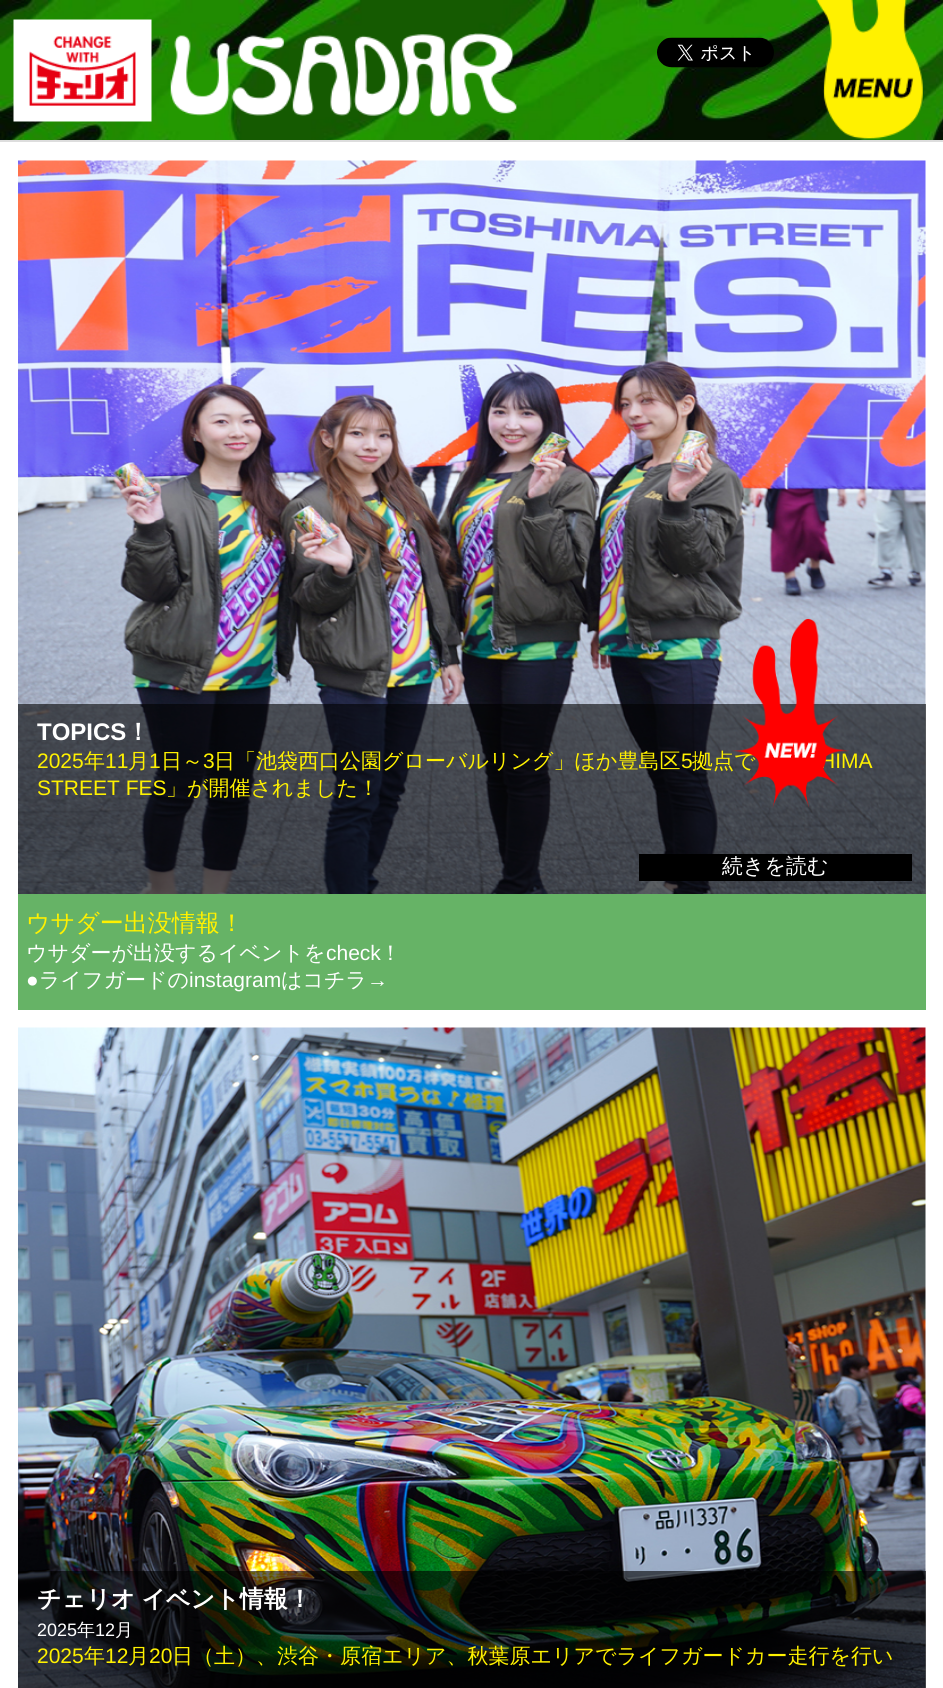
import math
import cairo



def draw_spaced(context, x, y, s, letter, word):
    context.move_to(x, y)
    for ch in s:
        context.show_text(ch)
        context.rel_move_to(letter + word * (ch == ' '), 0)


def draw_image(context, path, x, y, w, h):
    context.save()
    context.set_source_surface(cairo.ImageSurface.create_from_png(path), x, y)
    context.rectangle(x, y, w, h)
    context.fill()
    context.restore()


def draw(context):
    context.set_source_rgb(1, 1, 1)
    context.paint()
    draw_image(context, "images/1.png", 0, 0, 943, 140)
    context.set_source_rgb(221 / 255, 221 / 255, 221 / 255)
    context.rectangle(0, 140, 943, 2)
    context.fill()
    draw_image(context, "images/2.png", 13, 19, 139, 103)
    draw_image(context, "images/3.png", 170, 33, 347, 84)
    draw_image(context, "images/4.png", 657, 37, 117, 31)
    draw_image(context, "images/5.png", 816, 0, 107, 139)
    draw_image(context, "images/6.png", 18, 160, 908, 734)
    context.set_source_rgba(0, 0, 0, 0.6)
    context.rectangle(18, 704, 908, 190)
    context.fill()
    context.set_source_rgb(0, 0, 0)
    context.rectangle(639, 854, 273, 27)
    context.fill()
    context.set_source_rgb(102 / 255, 179 / 255, 102 / 255)
    context.rectangle(18, 894, 908, 116)
    context.fill()
    draw_image(context, "images/8.png", 18, 1027, 908, 661)
    context.set_source_rgba(0, 0, 0, 0.6)
    context.rectangle(18, 1571, 908, 117)
    context.fill()
    context.select_font_face("Liberation Sans", cairo.FontSlant.NORMAL, cairo.FontWeight.BOLD)
    context.set_font_size(24)
    context.set_source_rgb(1, 1, 1)
    context.move_to(37, 740)
    context.show_text("TOPICS")
    context.select_font_face("WenQuanYi Zen Hei", cairo.FontSlant.NORMAL, cairo.FontWeight.BOLD)
    context.move_to(126, 740)
    context.show_text("！")
    context.select_font_face("Liberation Sans")
    context.set_font_size(21)
    context.set_source_rgb(1, 241 / 255, 0)
    context.move_to(37, 768)
    context.show_text("2025")
    context.select_font_face("WenQuanYi Zen Hei Medium")
    context.move_to(84, 768)
    context.show_text("年")
    context.select_font_face("Liberation Sans")
    context.move_to(105, 768)
    context.show_text("11")
    context.select_font_face("WenQuanYi Zen Hei Medium")
    context.move_to(128, 768)
    context.show_text("月")
    context.select_font_face("Liberation Sans")
    context.move_to(149, 768)
    context.show_text("1")
    context.select_font_face("WenQuanYi Zen Hei Medium")
    context.move_to(161, 768)
    context.show_text("日～")
    context.select_font_face("Liberation Sans")
    context.move_to(203, 768)
    context.show_text("3")
    context.select_font_face("WenQuanYi Zen Hei Medium")
    context.move_to(214, 768)
    context.show_text("日「池袋西口公園グローバルリング」ほか豊島区")
    context.select_font_face("Liberation Sans")
    context.move_to(681, 768)
    context.show_text("5")
    context.select_font_face("WenQuanYi Zen Hei Medium")
    context.move_to(692, 768)
    context.show_text("拠点で")
    context.select_font_face("Liberation Sans")
    context.move_to(820, 768)
    context.show_text("HIMA")
    draw_image(context, "images/7.png", 732, 619, 117, 189)
    context.move_to(37, 795)
    context.show_text("STREET FES")
    context.select_font_face("WenQuanYi Zen Hei Medium")
    context.move_to(166, 795)
    context.show_text("」が開催されました！")
    context.set_source_rgb(1, 1, 1)
    context.move_to(722, 873)
    context.show_text("続きを読む")
    context.set_font_size(24)
    context.set_source_rgb(1, 241 / 255, 0)
    context.move_to(26, 931)
    context.show_text("ウサダー出没情報！")
    context.set_font_size(21)
    context.set_source_rgb(1, 1, 1)
    context.move_to(26, 960)
    context.show_text("ウサダーが出没するイベントを")
    context.select_font_face("Liberation Sans")
    context.move_to(326, 960)
    context.show_text("check")
    context.select_font_face("WenQuanYi Zen Hei Medium")
    context.move_to(380, 960)
    context.show_text("！")
    context.select_font_face("Liberation Sans")
    context.move_to(26, 987)
    context.show_text("●")
    context.select_font_face("WenQuanYi Zen Hei Medium")
    context.move_to(39, 987)
    context.show_text("ライフガードの")
    context.select_font_face("Liberation Sans")
    context.move_to(189, 987)
    context.show_text("instagram")
    context.select_font_face("WenQuanYi Zen Hei Medium")
    context.move_to(281, 987)
    context.show_text("はコチラ")
    context.select_font_face("Liberation Sans")
    context.move_to(367, 987)
    context.show_text("→")
    context.select_font_face("WenQuanYi Zen Hei", cairo.FontSlant.NORMAL, cairo.FontWeight.BOLD)
    context.set_font_size(24)
    draw_spaced(context, 37, 1607, "チェリオ イベント情報！", 0, -1)
    context.select_font_face("Liberation Sans")
    context.set_font_size(18)
    context.move_to(37, 1636)
    context.show_text("2025")
    context.select_font_face("WenQuanYi Zen Hei Medium")
    context.move_to(77, 1636)
    context.show_text("年")
    context.select_font_face("Liberation Sans")
    context.move_to(95, 1636)
    context.show_text("12")
    context.select_font_face("WenQuanYi Zen Hei Medium")
    context.move_to(115, 1636)
    context.show_text("月")
    context.select_font_face("Liberation Sans")
    context.set_font_size(21)
    context.set_source_rgb(1, 241 / 255, 0)
    context.move_to(37, 1663)
    context.show_text("2025")
    context.select_font_face("WenQuanYi Zen Hei Medium")
    context.move_to(84, 1663)
    context.show_text("年")
    context.select_font_face("Liberation Sans")
    context.move_to(105, 1663)
    context.show_text("12")
    context.select_font_face("WenQuanYi Zen Hei Medium")
    context.move_to(128, 1663)
    context.show_text("月")
    context.select_font_face("Liberation Sans")
    context.move_to(149, 1663)
    context.show_text("20")
    context.select_font_face("WenQuanYi Zen Hei Medium")
    context.move_to(172, 1663)
    context.show_text("日（土）、渋谷・原宿エリア、秋葉原エリアでライフガードカー走行を行い")


surface = cairo.ImageSurface(cairo.Format.RGB24, 943, 1688)
context = cairo.Context(surface)
options = cairo.FontOptions()
options.set_hint_metrics(cairo.HintMetrics.OFF)
options.set_hint_style(cairo.HintStyle.NONE)
context.set_font_options(options)
context.set_miter_limit(4)
draw(context)
surface.write_to_png("out.png")
